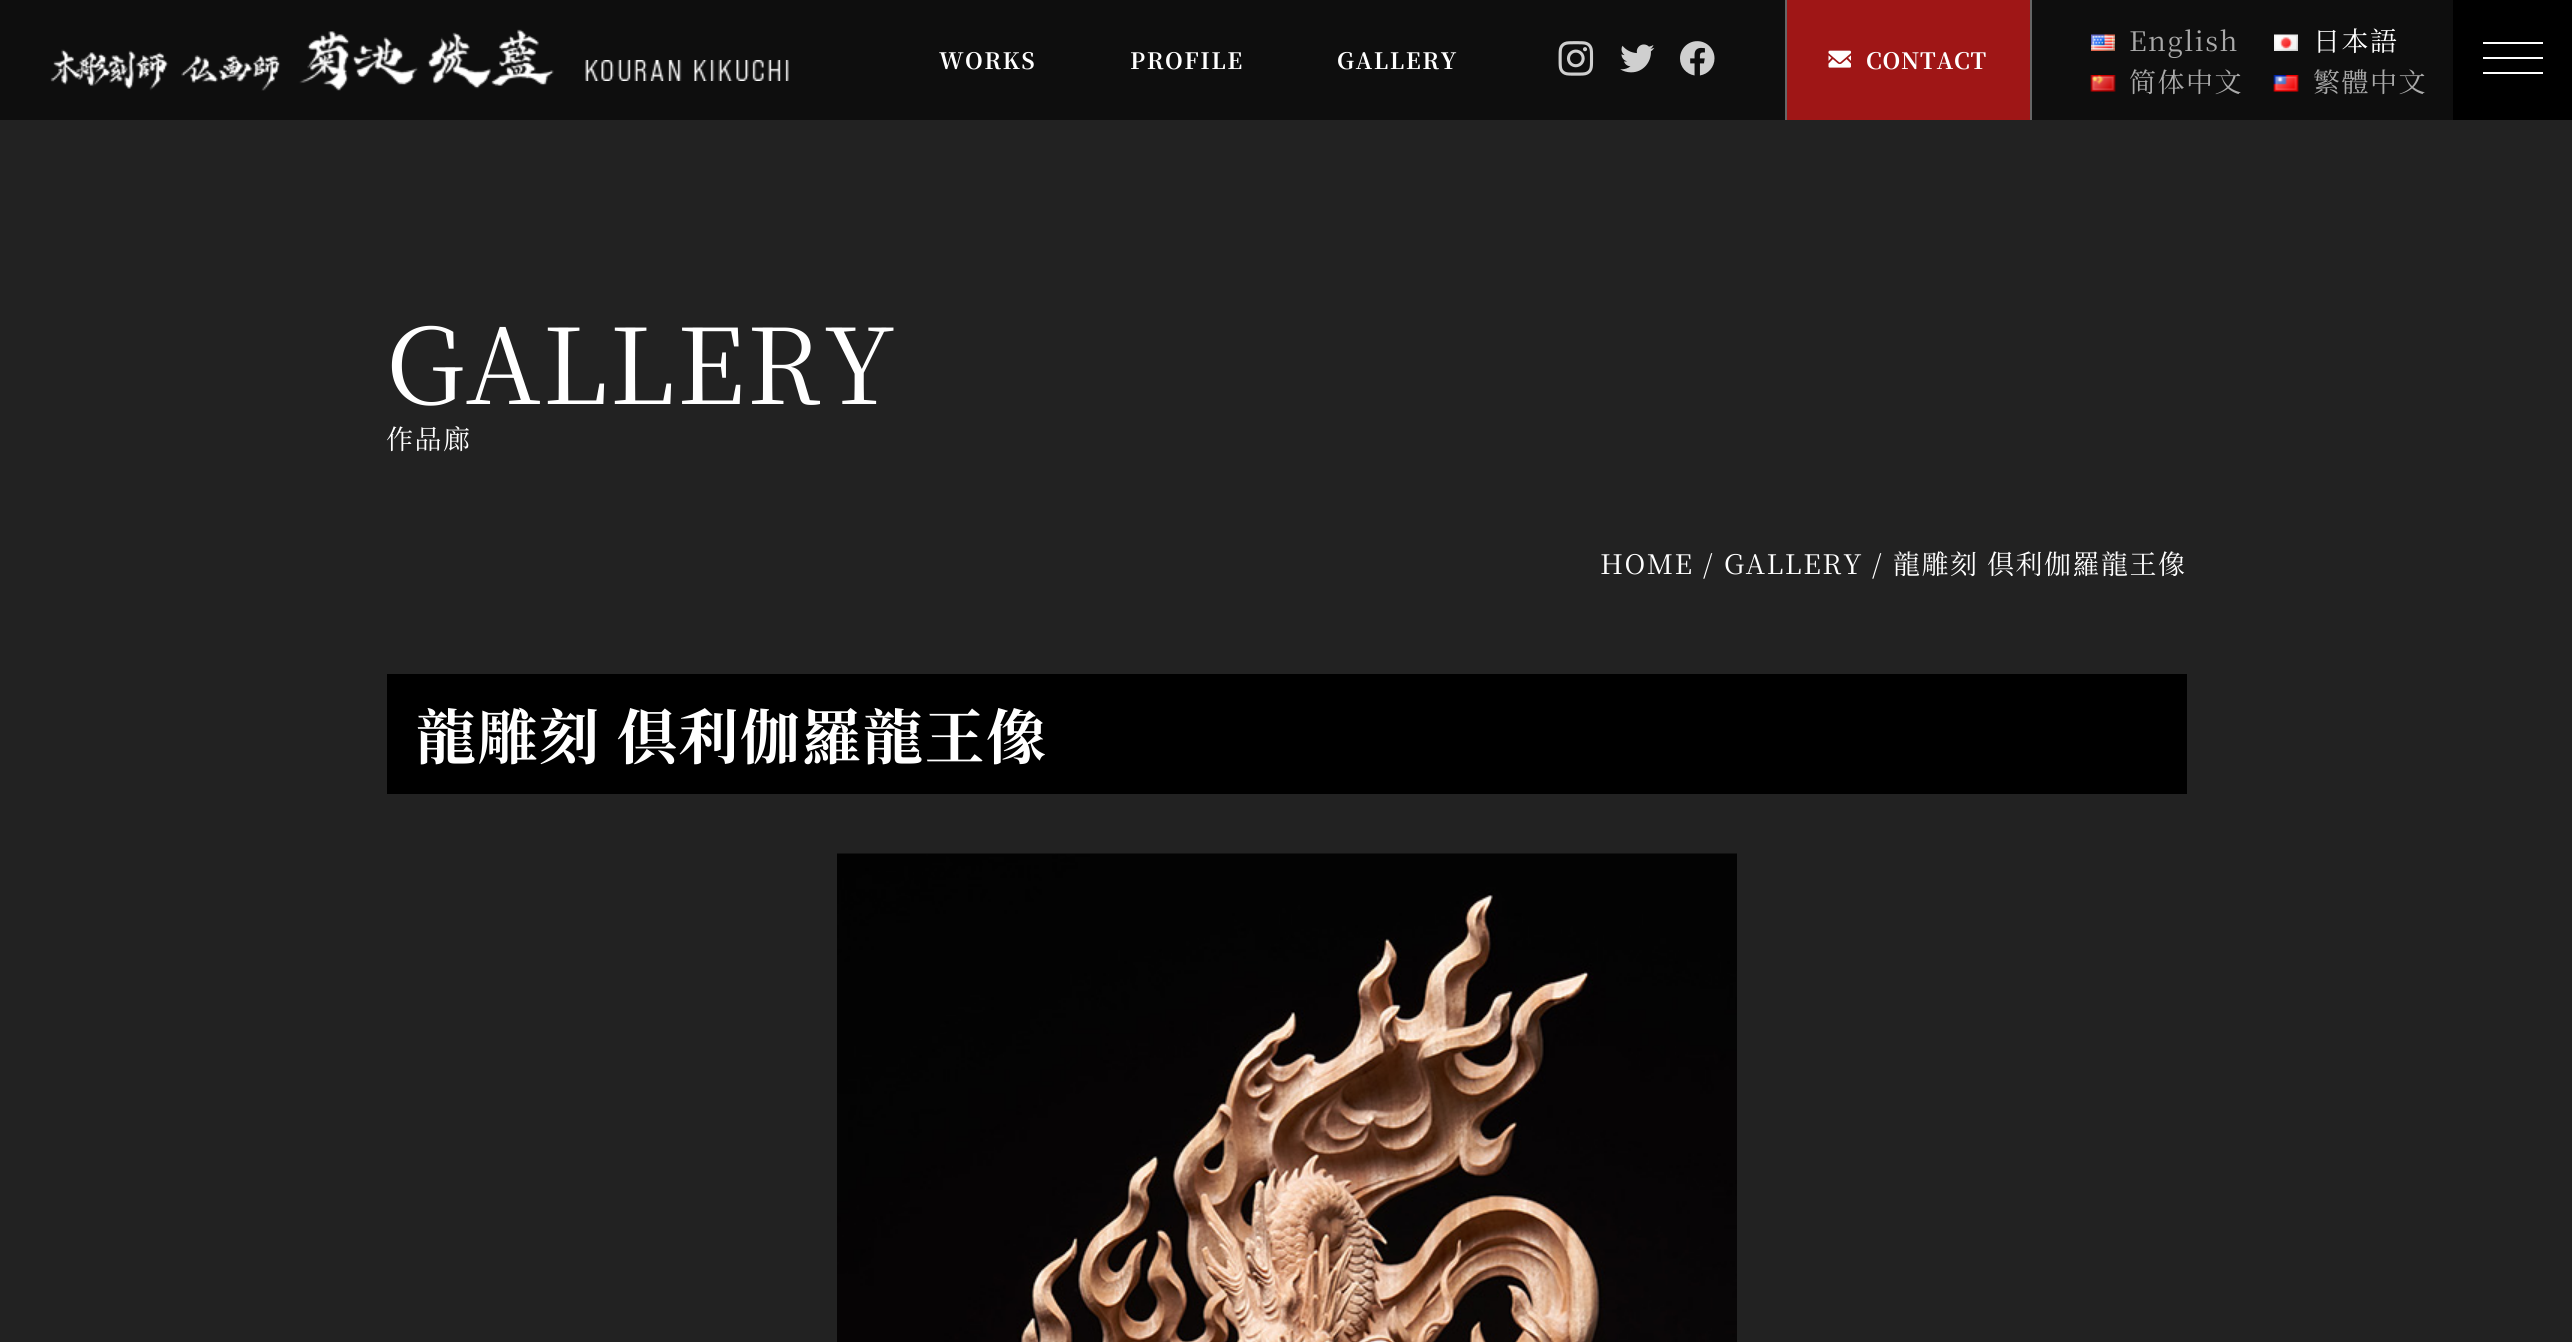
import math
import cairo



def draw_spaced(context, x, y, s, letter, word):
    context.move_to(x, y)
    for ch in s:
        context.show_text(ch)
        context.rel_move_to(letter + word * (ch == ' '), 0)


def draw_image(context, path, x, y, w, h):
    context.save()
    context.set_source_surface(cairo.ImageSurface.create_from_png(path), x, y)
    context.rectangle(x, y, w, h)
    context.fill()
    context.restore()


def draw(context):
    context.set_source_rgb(34 / 255, 34 / 255, 34 / 255)
    context.paint()
    context.set_source_rgb(14 / 255, 14 / 255, 14 / 255)
    context.rectangle(0, 0, 2453, 120)
    context.fill()
    draw_image(context, "images/1.png", 50, 29, 504, 62)
    draw_image(context, "images/2.png", 585, 60, 204, 21)
    draw_image(context, "images/3.png", 1558, 41, 36, 35)
    draw_image(context, "images/4.png", 1620, 44, 35, 29)
    draw_image(context, "images/5.png", 1680, 41, 35, 35)
    context.set_source_rgb(102 / 255, 102 / 255, 102 / 255)
    context.rectangle(2030, 0, 2, 120)
    context.fill()
    context.rectangle(1785, 0, 2, 120)
    context.fill()
    context.set_source_rgb(159 / 255, 22 / 255, 22 / 255)
    context.rectangle(1787, 0, 243, 120)
    context.fill()
    draw_image(context, "images/6.png", 1828, 50, 23, 18)
    draw_image(context, "images/7.png", 2091, 34, 24, 17)
    draw_image(context, "images/8.png", 2274, 34, 24, 17)
    draw_image(context, "images/9.png", 2090, 75, 26, 17)
    draw_image(context, "images/10.png", 2273, 75, 26, 17)
    context.set_source_rgb(0, 0, 0)
    context.rectangle(2453, 0, 119, 120)
    context.fill()
    context.set_source_rgb(1, 1, 1)
    context.rectangle(2483, 42, 60, 2)
    context.fill()
    context.rectangle(2483, 57, 60, 2)
    context.fill()
    context.rectangle(2483, 72, 60, 2)
    context.fill()
    context.set_source_rgb(0, 0, 0)
    context.rectangle(387, 674, 1800, 120)
    context.fill()
    draw_image(context, "images/11.png", 837, 853, 900, 489)
    context.select_font_face("Noto Serif SC", cairo.FontSlant.NORMAL, cairo.FontWeight.BOLD)
    context.set_font_size(22.5)
    context.set_source_rgb(1, 1, 1)
    draw_spaced(context, 939, 69, "WORKS", 1.5, 0)
    draw_spaced(context, 1130, 69, "PROFILE", 1.5, 0)
    draw_spaced(context, 1337, 69, "GALLERY", 1.5, 0)
    draw_spaced(context, 1866, 69, "CONTACT", 0.75, 0)
    context.select_font_face("Noto Serif SC")
    context.set_font_size(27)
    context.set_source_rgb(170 / 255, 170 / 255, 170 / 255)
    draw_spaced(context, 2129, 51, "English", 1.5, 0)
    context.set_source_rgb(1, 1, 1)
    draw_spaced(context, 2313, 51, "日本語", 1.5, 0)
    context.set_source_rgb(170 / 255, 170 / 255, 170 / 255)
    draw_spaced(context, 2129, 92, "简体中文", 1.5, 0)
    draw_spaced(context, 2313, 92, "繁體中文", 1.5, 0)
    context.set_font_size(105)
    context.set_source_rgb(1, 1, 1)
    draw_spaced(context, 386, 404, "GALLERY", 1.5, 0)
    context.set_font_size(27)
    draw_spaced(context, 386, 449, "作品廊", 1.5, 0)
    draw_spaced(context, 1600, 574, "HOME", 1.5, 0)
    draw_spaced(context, 1703, 574, "/", 1.5, 0)
    draw_spaced(context, 1724, 574, "GALLERY", 1.5, 0)
    draw_spaced(context, 1872, 574, "/", 1.5, 0)
    draw_spaced(context, 1893, 574, "龍雕刻 倶利伽羅龍王像", 1.5, 0)
    context.select_font_face("Noto Serif SC", cairo.FontSlant.NORMAL, cairo.FontWeight.BOLD)
    context.set_font_size(60)
    draw_spaced(context, 416, 759, "龍雕刻 倶利伽羅龍王像", 1.5, 0)


surface = cairo.ImageSurface(cairo.Format.RGB24, 2572, 1342)
context = cairo.Context(surface)
options = cairo.FontOptions()
options.set_hint_metrics(cairo.HintMetrics.OFF)
options.set_hint_style(cairo.HintStyle.NONE)
context.set_font_options(options)
context.set_miter_limit(4)
draw(context)
surface.write_to_png("out.png")
